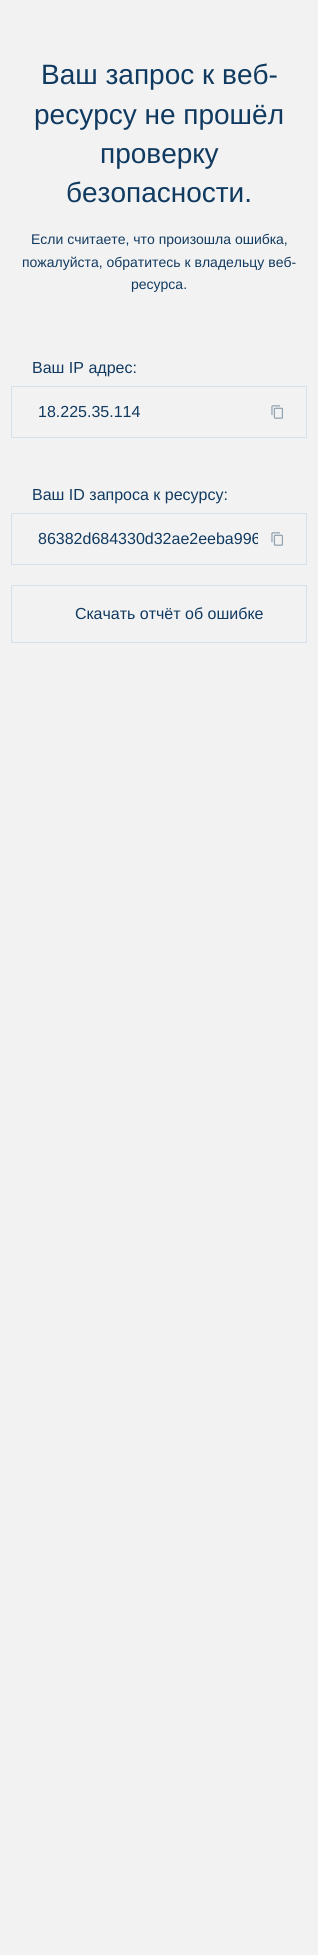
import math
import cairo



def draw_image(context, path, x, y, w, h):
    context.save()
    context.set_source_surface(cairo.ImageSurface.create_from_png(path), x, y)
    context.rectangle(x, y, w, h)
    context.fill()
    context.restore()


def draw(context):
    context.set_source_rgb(242 / 255, 242 / 255, 242 / 255)
    context.paint()
    context.rectangle(11.5, 386.5, 295, 51)
    context.set_source_rgb(212 / 255, 224 / 255, 235 / 255)
    context.set_line_width(1)
    context.stroke()
    draw_image(context, "images/1.png", 271, 405, 12, 14)
    context.rectangle(11.5, 513.5, 295, 51)
    context.stroke()
    draw_image(context, "images/1.png", 271, 532, 12, 14)
    context.rectangle(11.5, 585.5, 295, 57)
    context.stroke()
    context.select_font_face("Liberation Sans")
    context.set_font_size(28)
    context.set_source_rgb(17 / 255, 58 / 255, 96 / 255)
    context.move_to(41, 84)
    context.show_text("Ваш запрос к веб-")
    context.move_to(34, 124)
    context.show_text("ресурсу не прошёл")
    context.move_to(100, 163)
    context.show_text("проверку")
    context.move_to(66, 202)
    context.show_text("безопасности.")
    context.set_font_size(14)
    context.move_to(31, 244)
    context.show_text("Если считаете, что произошла ошибка,")
    context.move_to(22, 267)
    context.show_text("пожалуйста, обратитесь к владельцу веб-")
    context.move_to(131, 289)
    context.show_text("ресурса.")
    context.set_font_size(16)
    context.move_to(32, 373)
    context.show_text("Ваш IP адрес:")
    context.move_to(38, 417)
    context.show_text("18.225.35.114")
    context.move_to(32, 500)
    context.show_text("Ваш ID запроса к ресурсу:")
    context.save()
    context.rectangle(38, 530, 220, 18)
    context.clip()
    context.move_to(38, 544)
    context.show_text("86382d684330d32ae2eeba996")
    context.restore()
    context.move_to(75, 619)
    context.show_text("Скачать отчёт об ошибке")


surface = cairo.ImageSurface(cairo.Format.RGB24, 318, 1955)
context = cairo.Context(surface)
options = cairo.FontOptions()
options.set_hint_metrics(cairo.HintMetrics.OFF)
options.set_hint_style(cairo.HintStyle.NONE)
context.set_font_options(options)
context.set_miter_limit(4)
draw(context)
surface.write_to_png("out.png")
